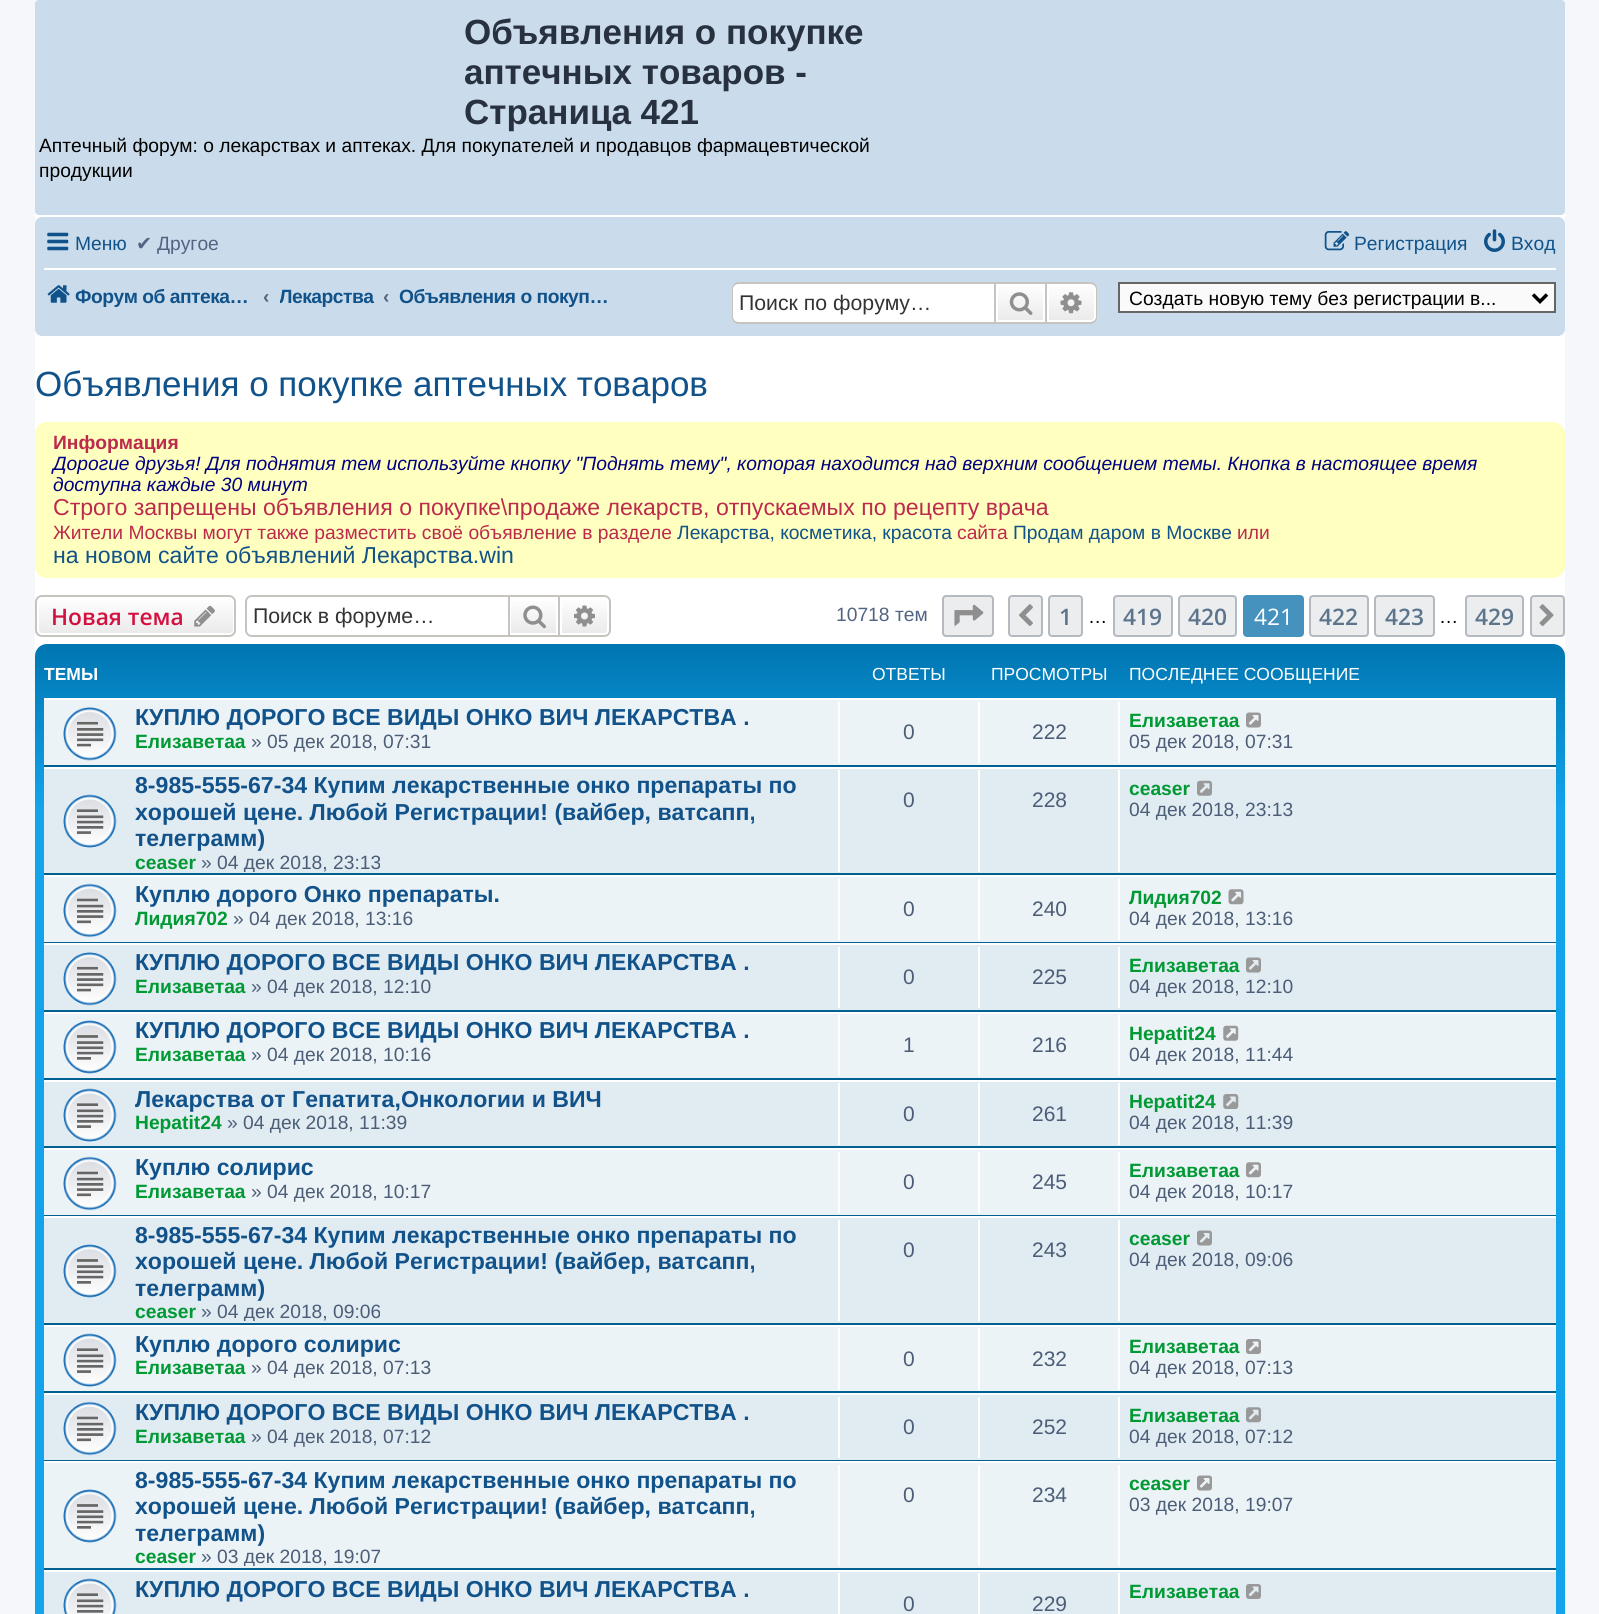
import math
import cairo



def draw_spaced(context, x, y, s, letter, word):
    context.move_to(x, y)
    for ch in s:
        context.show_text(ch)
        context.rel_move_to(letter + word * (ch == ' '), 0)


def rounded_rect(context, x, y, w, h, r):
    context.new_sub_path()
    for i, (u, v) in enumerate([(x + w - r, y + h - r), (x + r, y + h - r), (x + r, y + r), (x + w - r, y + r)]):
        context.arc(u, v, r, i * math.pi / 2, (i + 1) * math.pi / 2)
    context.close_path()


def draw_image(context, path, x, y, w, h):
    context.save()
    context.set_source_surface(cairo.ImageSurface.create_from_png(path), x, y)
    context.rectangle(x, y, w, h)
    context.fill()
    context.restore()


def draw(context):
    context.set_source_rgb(245 / 255, 247 / 255, 250 / 255)
    context.paint()
    context.set_source_rgb(1, 1, 1)
    rounded_rect(context, 35, 0, 1530, 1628, 14)
    context.fill()
    context.set_source_rgb(202 / 255, 220 / 255, 235 / 255)
    rounded_rect(context, 35, 0, 1530, 215, 4)
    context.fill()
    rounded_rect(context, 35, 217, 1530, 119, 7)
    context.fill()
    draw_image(context, "images/1.png", 47, 232, 22, 19)
    draw_image(context, "images/2.png", 1324, 231, 26, 20)
    draw_image(context, "images/3.png", 1484, 229, 21, 23)
    context.set_source_rgb(1, 1, 1)
    context.rectangle(44, 268, 1512, 2)
    context.fill()
    draw_image(context, "images/4.png", 47, 285, 23, 18)
    context.new_path()
    context.move_to(738, 284)
    context.line_to(994, 284)
    context.line_to(994, 322)
    context.line_to(738, 322)
    context.curve_to(735, 322, 733, 320, 733, 317)
    context.line_to(733, 289)
    context.curve_to(733, 286, 735, 284, 738, 284)
    context.close_path()
    context.fill()
    context.set_source_rgb(199 / 255, 195 / 255, 191 / 255)
    context.set_fill_rule(cairo.FillRule.EVEN_ODD)
    context.new_path()
    context.move_to(738, 282)
    context.line_to(994, 282)
    context.line_to(994, 324)
    context.line_to(738, 324)
    context.curve_to(735, 324, 732, 321, 732, 317)
    context.line_to(732, 289)
    context.curve_to(732, 285, 735, 282, 738, 282)
    context.close_path()
    context.move_to(738, 284)
    context.line_to(994, 284)
    context.line_to(994, 322)
    context.line_to(738, 322)
    context.curve_to(736, 322, 733, 320, 733, 317)
    context.line_to(733, 289)
    context.curve_to(733, 286, 736, 284, 738, 284)
    context.close_path()
    context.fill()
    gradient = cairo.LinearGradient(1020, 284, 1020, 322)
    gradient.add_color_stop_rgba(0, 1, 1, 1, 1)
    gradient.add_color_stop_rgba(1, 233 / 255, 233 / 255, 233 / 255, 1)
    context.set_source(gradient)
    context.rectangle(998, 286, 45, 34)
    context.fill()
    context.rectangle(997, 285, 47, 36)
    context.set_source_rgb(1, 1, 1)
    context.stroke()
    context.rectangle(995, 283, 51, 40)
    context.set_source_rgb(199 / 255, 195 / 255, 191 / 255)
    context.stroke()
    draw_image(context, "images/5.png", 1009, 292, 24, 23)
    gradient = cairo.LinearGradient(1071, 284, 1071, 322)
    gradient.add_color_stop_rgba(0, 1, 1, 1, 1)
    gradient.add_color_stop_rgba(1, 233 / 255, 233 / 255, 233 / 255, 1)
    context.set_source(gradient)
    context.new_path()
    context.move_to(1048, 285)
    context.line_to(1091, 285)
    context.curve_to(1093, 285, 1095, 287, 1095, 289)
    context.line_to(1095, 317)
    context.curve_to(1095, 319, 1093, 321, 1091, 321)
    context.line_to(1048, 321)
    context.close_path()
    context.fill_preserve()
    context.set_source_rgb(1, 1, 1)
    context.stroke()
    context.set_source_rgb(199 / 255, 195 / 255, 191 / 255)
    context.new_path()
    context.move_to(1046, 282)
    context.line_to(1090, 282)
    context.curve_to(1094, 282, 1097, 285, 1097, 289)
    context.line_to(1097, 317)
    context.curve_to(1097, 321, 1094, 324, 1090, 324)
    context.line_to(1046, 324)
    context.close_path()
    context.move_to(1046, 284)
    context.line_to(1090, 284)
    context.curve_to(1093, 284, 1096, 286, 1096, 289)
    context.line_to(1096, 317)
    context.curve_to(1096, 320, 1093, 322, 1090, 322)
    context.line_to(1046, 322)
    context.close_path()
    context.fill()
    draw_image(context, "images/6.png", 1060, 292, 22, 22)
    context.set_source_rgb(250 / 255, 250 / 255, 250 / 255)
    context.rectangle(1119, 283, 436, 29)
    context.fill_preserve()
    context.set_source_rgb(102 / 255, 102 / 255, 102 / 255)
    context.stroke()
    context.new_path()
    context.move_to(1533, 294.5)
    context.line_to(1540, 301.5)
    context.line_to(1547, 294.5)
    context.set_source_rgb(0, 0, 0)
    context.set_line_width(3.5)
    context.stroke()
    context.set_source_rgb(1, 1, 191 / 255)
    rounded_rect(context, 35, 422, 1530, 156, 12)
    context.fill()
    context.save()
    context.set_fill_rule(cairo.FillRule.WINDING)
    rounded_rect(context, 35, 595, 201, 42, 7)
    context.clip()
    gradient = cairo.LinearGradient(136, 597, 136, 635)
    gradient.add_color_stop_rgba(0, 1, 1, 1, 1)
    gradient.add_color_stop_rgba(1, 233 / 255, 233 / 255, 233 / 255, 1)
    context.set_source(gradient)
    context.rectangle(35, 597, 201, 38)
    context.fill()
    context.restore()
    rounded_rect(context, 38, 598, 196, 36, 4)
    context.set_source_rgb(1, 1, 1)
    context.set_line_width(2)
    context.stroke()
    rounded_rect(context, 36, 596, 199, 40, 6)
    context.set_source_rgb(199 / 255, 195 / 255, 191 / 255)
    context.stroke()
    draw_image(context, "images/7.png", 194, 605, 21, 22)
    context.new_path()
    context.move_to(252, 595)
    context.line_to(508, 595)
    context.line_to(508, 637)
    context.line_to(252, 637)
    context.curve_to(248, 637, 245, 634, 245, 630)
    context.line_to(245, 602)
    context.curve_to(245, 598, 248, 595, 252, 595)
    context.close_path()
    context.move_to(252, 597)
    context.line_to(508, 597)
    context.line_to(508, 635)
    context.line_to(252, 635)
    context.curve_to(249, 635, 247, 633, 247, 630)
    context.line_to(247, 602)
    context.curve_to(247, 599, 249, 597, 252, 597)
    context.close_path()
    context.fill()
    gradient = cairo.LinearGradient(534, 597, 534, 635)
    gradient.add_color_stop_rgba(0, 1, 1, 1, 1)
    gradient.add_color_stop_rgba(1, 233 / 255, 233 / 255, 233 / 255, 1)
    context.set_source(gradient)
    context.rectangle(511, 601, 45, 32)
    context.fill()
    context.rectangle(509, 596, 50, 40)
    context.set_source_rgb(199 / 255, 195 / 255, 191 / 255)
    context.stroke()
    draw_image(context, "images/8.png", 523, 605, 23, 24)
    gradient = cairo.LinearGradient(585, 597, 585, 635)
    gradient.add_color_stop_rgba(0, 1, 1, 1, 1)
    gradient.add_color_stop_rgba(1, 233 / 255, 233 / 255, 233 / 255, 1)
    context.set_source(gradient)
    context.new_path()
    context.move_to(561, 598)
    context.line_to(604, 598)
    context.curve_to(606, 598, 608, 600, 608, 602)
    context.line_to(608, 630)
    context.curve_to(608, 632, 606, 634, 604, 634)
    context.line_to(561, 634)
    context.close_path()
    context.fill_preserve()
    context.set_source_rgb(1, 1, 1)
    context.stroke()
    context.set_source_rgb(199 / 255, 195 / 255, 191 / 255)
    context.new_path()
    context.move_to(560, 595)
    context.line_to(604, 595)
    context.curve_to(608, 595, 611, 598, 611, 602)
    context.line_to(611, 630)
    context.curve_to(611, 634, 608, 637, 604, 637)
    context.line_to(560, 637)
    context.close_path()
    context.move_to(560, 597)
    context.line_to(604, 597)
    context.curve_to(607, 597, 609, 599, 609, 602)
    context.line_to(609, 630)
    context.curve_to(609, 633, 607, 635, 604, 635)
    context.line_to(560, 635)
    context.close_path()
    context.fill()
    draw_image(context, "images/9.png", 574, 605, 21, 22)
    context.set_source_rgb(236 / 255, 237 / 255, 238 / 255)
    rounded_rect(context, 943, 596, 50, 40, 3)
    context.fill_preserve()
    context.set_source_rgb(180 / 255, 186 / 255, 192 / 255)
    context.stroke()
    draw_image(context, "images/10.png", 954, 604, 30, 22)
    context.set_source_rgb(236 / 255, 237 / 255, 238 / 255)
    rounded_rect(context, 1009, 596, 33, 40, 3)
    context.fill_preserve()
    context.set_source_rgb(180 / 255, 186 / 255, 192 / 255)
    context.stroke()
    draw_image(context, "images/11.png", 1019, 604, 14, 22)
    context.set_source_rgb(236 / 255, 237 / 255, 238 / 255)
    rounded_rect(context, 1049, 596, 33, 40, 3)
    context.fill_preserve()
    context.set_source_rgb(180 / 255, 186 / 255, 192 / 255)
    context.stroke()
    context.set_source_rgb(236 / 255, 237 / 255, 238 / 255)
    rounded_rect(context, 1114, 596, 58, 40, 3)
    context.fill_preserve()
    context.set_source_rgb(180 / 255, 186 / 255, 192 / 255)
    context.stroke()
    context.set_source_rgb(236 / 255, 237 / 255, 238 / 255)
    rounded_rect(context, 1179, 596, 57, 40, 3)
    context.fill_preserve()
    context.set_source_rgb(180 / 255, 186 / 255, 192 / 255)
    context.stroke()
    context.set_source_rgb(70 / 255, 146 / 255, 191 / 255)
    rounded_rect(context, 1244, 596, 59, 40, 3)
    context.fill_preserve()
    context.stroke()
    context.set_source_rgb(236 / 255, 237 / 255, 238 / 255)
    rounded_rect(context, 1310, 596, 58, 40, 3)
    context.fill_preserve()
    context.set_source_rgb(180 / 255, 186 / 255, 192 / 255)
    context.stroke()
    context.set_source_rgb(236 / 255, 237 / 255, 238 / 255)
    rounded_rect(context, 1375, 596, 59, 40, 3)
    context.fill_preserve()
    context.set_source_rgb(180 / 255, 186 / 255, 192 / 255)
    context.stroke()
    context.set_source_rgb(236 / 255, 237 / 255, 238 / 255)
    rounded_rect(context, 1466, 596, 57, 40, 3)
    context.fill_preserve()
    context.set_source_rgb(180 / 255, 186 / 255, 192 / 255)
    context.stroke()
    context.set_source_rgb(236 / 255, 237 / 255, 238 / 255)
    rounded_rect(context, 1531, 596, 33, 40, 3)
    context.fill_preserve()
    context.set_source_rgb(180 / 255, 186 / 255, 192 / 255)
    context.stroke()
    draw_image(context, "images/12.png", 1539, 604, 15, 23)
    gradient = cairo.LinearGradient(800, 644, 800, 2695)
    gradient.add_color_stop_rgba(0, 106 / 255, 206 / 255, 1, 1)
    gradient.add_color_stop_rgba(0, 0, 118 / 255, 177 / 255, 1)
    gradient.add_color_stop_rgba(0.08, 18 / 255, 163 / 255, 235 / 255, 1)
    gradient.add_color_stop_rgba(1, 18 / 255, 163 / 255, 235 / 255, 1)
    context.set_source(gradient)
    rounded_rect(context, 35, 644, 1530, 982, 12)
    context.fill()
    context.set_source_rgb(236 / 255, 243 / 255, 247 / 255)
    context.rectangle(44, 700, 1512, 65)
    context.fill()
    context.set_source_rgb(1, 1, 1)
    context.rectangle(44, 698, 1512, 2)
    context.fill()
    context.set_source_rgb(0, 96 / 255, 143 / 255)
    context.rectangle(44, 765, 1512, 2)
    context.fill()
    draw_image(context, "images/13.png", 63, 707, 54, 54)
    context.set_source_rgb(1, 1, 1)
    context.rectangle(838, 702, 2, 61)
    context.fill()
    context.rectangle(978, 702, 2, 61)
    context.fill()
    context.rectangle(1118, 702, 2, 61)
    context.fill()
    draw_image(context, "images/14.png", 1246, 712, 15, 16)
    context.set_source_rgb(225 / 255, 235 / 255, 242 / 255)
    context.rectangle(44, 769, 1512, 104)
    context.fill()
    context.set_source_rgb(1, 1, 1)
    context.rectangle(44, 767, 1512, 2)
    context.fill()
    context.set_source_rgb(0, 96 / 255, 143 / 255)
    context.rectangle(44, 873, 1512, 2)
    context.fill()
    draw_image(context, "images/15.png", 63, 794, 54, 54)
    context.set_source_rgb(1, 1, 1)
    context.rectangle(838, 770, 2, 102)
    context.fill()
    context.rectangle(978, 770, 2, 102)
    context.fill()
    context.rectangle(1118, 770, 2, 102)
    context.fill()
    draw_image(context, "images/16.png", 1197, 780, 15, 16)
    context.set_source_rgb(236 / 255, 243 / 255, 247 / 255)
    context.rectangle(44, 877, 1512, 65)
    context.fill()
    context.set_source_rgb(1, 1, 1)
    context.rectangle(44, 875, 1512, 2)
    context.fill()
    context.set_source_rgb(0, 96 / 255, 143 / 255)
    context.rectangle(44, 942, 1512, 1)
    context.fill()
    draw_image(context, "images/17.png", 63, 883, 54, 55)
    context.set_source_rgb(1, 1, 1)
    context.rectangle(838, 879, 2, 61)
    context.fill()
    context.rectangle(978, 879, 2, 61)
    context.fill()
    context.rectangle(1118, 879, 2, 61)
    context.fill()
    draw_image(context, "images/18.png", 1228, 889, 16, 16)
    context.set_source_rgb(225 / 255, 235 / 255, 242 / 255)
    context.rectangle(44, 945, 1512, 65)
    context.fill()
    context.set_source_rgb(1, 1, 1)
    context.rectangle(44, 943, 1512, 2)
    context.fill()
    context.set_source_rgb(0, 96 / 255, 143 / 255)
    context.rectangle(44, 1010, 1512, 2)
    context.fill()
    draw_image(context, "images/19.png", 63, 952, 54, 54)
    context.set_source_rgb(1, 1, 1)
    context.rectangle(838, 947, 2, 61)
    context.fill()
    context.rectangle(978, 947, 2, 61)
    context.fill()
    context.rectangle(1118, 947, 2, 61)
    context.fill()
    draw_image(context, "images/20.png", 1246, 957, 15, 16)
    context.set_source_rgb(236 / 255, 243 / 255, 247 / 255)
    context.rectangle(44, 1014, 1512, 64)
    context.fill()
    context.set_source_rgb(1, 1, 1)
    context.rectangle(44, 1012, 1512, 2)
    context.fill()
    context.set_source_rgb(0, 96 / 255, 143 / 255)
    context.rectangle(44, 1078, 1512, 2)
    context.fill()
    draw_image(context, "images/21.png", 63, 1020, 54, 54)
    context.set_source_rgb(1, 1, 1)
    context.rectangle(838, 1015, 2, 61)
    context.fill()
    context.rectangle(978, 1015, 2, 61)
    context.fill()
    context.rectangle(1118, 1015, 2, 61)
    context.fill()
    draw_image(context, "images/22.png", 1223, 1025, 16, 16)
    context.set_source_rgb(225 / 255, 235 / 255, 242 / 255)
    context.rectangle(44, 1082, 1512, 64)
    context.fill()
    context.set_source_rgb(1, 1, 1)
    context.rectangle(44, 1080, 1512, 2)
    context.fill()
    context.set_source_rgb(0, 96 / 255, 143 / 255)
    context.rectangle(44, 1146, 1512, 2)
    context.fill()
    draw_image(context, "images/15.png", 63, 1088, 54, 54)
    context.set_source_rgb(1, 1, 1)
    context.rectangle(838, 1083, 2, 62)
    context.fill()
    context.rectangle(978, 1083, 2, 62)
    context.fill()
    context.rectangle(1118, 1083, 2, 62)
    context.fill()
    draw_image(context, "images/23.png", 1223, 1094, 16, 15)
    context.set_source_rgb(236 / 255, 243 / 255, 247 / 255)
    context.rectangle(44, 1150, 1512, 65)
    context.fill()
    context.set_source_rgb(1, 1, 1)
    context.rectangle(44, 1148, 1512, 2)
    context.fill()
    context.set_source_rgb(0, 96 / 255, 143 / 255)
    context.rectangle(44, 1215, 1512, 1)
    context.fill()
    draw_image(context, "images/17.png", 63, 1156, 54, 55)
    context.set_source_rgb(1, 1, 1)
    context.rectangle(838, 1152, 2, 61)
    context.fill()
    context.rectangle(978, 1152, 2, 61)
    context.fill()
    context.rectangle(1118, 1152, 2, 61)
    context.fill()
    draw_image(context, "images/24.png", 1246, 1162, 15, 16)
    context.set_source_rgb(225 / 255, 235 / 255, 242 / 255)
    context.rectangle(44, 1218, 1512, 105)
    context.fill()
    context.set_source_rgb(1, 1, 1)
    context.rectangle(44, 1216, 1512, 2)
    context.fill()
    context.set_source_rgb(0, 96 / 255, 143 / 255)
    context.rectangle(44, 1323, 1512, 2)
    context.fill()
    draw_image(context, "images/25.png", 63, 1244, 54, 54)
    context.set_source_rgb(1, 1, 1)
    context.rectangle(838, 1220, 2, 101)
    context.fill()
    context.rectangle(978, 1220, 2, 101)
    context.fill()
    context.rectangle(1118, 1220, 2, 101)
    context.fill()
    draw_image(context, "images/26.png", 1197, 1230, 15, 16)
    context.set_source_rgb(236 / 255, 243 / 255, 247 / 255)
    context.rectangle(44, 1327, 1512, 64)
    context.fill()
    context.set_source_rgb(1, 1, 1)
    context.rectangle(44, 1325, 1512, 2)
    context.fill()
    context.set_source_rgb(0, 96 / 255, 143 / 255)
    context.rectangle(44, 1391, 1512, 2)
    context.fill()
    draw_image(context, "images/27.png", 63, 1333, 54, 54)
    context.set_source_rgb(1, 1, 1)
    context.rectangle(838, 1328, 2, 62)
    context.fill()
    context.rectangle(978, 1328, 2, 62)
    context.fill()
    context.rectangle(1118, 1328, 2, 62)
    context.fill()
    draw_image(context, "images/28.png", 1246, 1339, 15, 15)
    context.set_source_rgb(225 / 255, 235 / 255, 242 / 255)
    context.rectangle(44, 1395, 1512, 65)
    context.fill()
    context.set_source_rgb(1, 1, 1)
    context.rectangle(44, 1393, 1512, 2)
    context.fill()
    context.set_source_rgb(0, 96 / 255, 143 / 255)
    context.rectangle(44, 1460, 1512, 1)
    context.fill()
    draw_image(context, "images/29.png", 63, 1401, 54, 55)
    context.set_source_rgb(1, 1, 1)
    context.rectangle(838, 1397, 2, 61)
    context.fill()
    context.rectangle(978, 1397, 2, 61)
    context.fill()
    context.rectangle(1118, 1397, 2, 61)
    context.fill()
    draw_image(context, "images/30.png", 1246, 1407, 15, 16)
    context.set_source_rgb(236 / 255, 243 / 255, 247 / 255)
    context.rectangle(44, 1463, 1512, 105)
    context.fill()
    context.set_source_rgb(1, 1, 1)
    context.rectangle(44, 1461, 1512, 2)
    context.fill()
    context.set_source_rgb(0, 96 / 255, 143 / 255)
    context.rectangle(44, 1568, 1512, 2)
    context.fill()
    draw_image(context, "images/21.png", 63, 1489, 54, 54)
    context.set_source_rgb(1, 1, 1)
    context.rectangle(838, 1465, 2, 101)
    context.fill()
    context.rectangle(978, 1465, 2, 101)
    context.fill()
    context.rectangle(1118, 1465, 2, 101)
    context.fill()
    draw_image(context, "images/14.png", 1197, 1475, 15, 16)
    context.set_source_rgb(225 / 255, 235 / 255, 242 / 255)
    context.rectangle(44, 1572, 1512, 42)
    context.fill()
    context.set_source_rgb(1, 1, 1)
    context.rectangle(44, 1570, 1512, 2)
    context.fill()
    draw_image(context, "images/31.png", 63, 1578, 54, 36)
    context.rectangle(1118, 1573, 2, 41)
    context.fill()
    draw_image(context, "images/32.png", 1246, 1584, 15, 15)
    context.rectangle(838, 1573, 2, 41)
    context.fill()
    context.rectangle(978, 1573, 2, 41)
    context.fill()
    context.select_font_face("Liberation Sans", cairo.FontSlant.NORMAL, cairo.FontWeight.BOLD)
    context.set_font_size(35)
    context.set_source_rgb(40 / 255, 49 / 255, 63 / 255)
    context.move_to(464, 44)
    context.show_text("Объявления о покупке")
    context.move_to(464, 84)
    context.show_text("аптечных товаров -")
    context.move_to(464, 124)
    context.show_text("Страница 421")
    context.select_font_face("Liberation Sans")
    context.set_font_size(19.25)
    context.set_source_rgb(0, 0, 0)
    context.move_to(39, 152)
    context.show_text("Аптечный форум: о лекарствах и аптеках. Для покупателей и продавцов фармацевтической")
    context.move_to(39, 177)
    context.show_text("продукции")
    context.set_source_rgb(16 / 255, 82 / 255, 137 / 255)
    context.move_to(75, 250)
    context.show_text("Меню")
    context.select_font_face("DejaVu Sans")
    context.set_source_rgb(83 / 255, 100 / 255, 130 / 255)
    context.move_to(136, 250)
    context.show_text("✔")
    context.select_font_face("Liberation Sans")
    context.move_to(157, 250)
    context.show_text("Другое")
    context.set_source_rgb(16 / 255, 82 / 255, 137 / 255)
    context.move_to(1354, 250)
    context.show_text("Регистрация")
    context.move_to(1511, 250)
    context.show_text("Вход")
    context.select_font_face("Liberation Sans", cairo.FontSlant.NORMAL, cairo.FontWeight.BOLD)
    draw_spaced(context, 75, 303, "Форум об аптека…", -0.5, 0)
    context.set_source_rgb(83 / 255, 100 / 255, 130 / 255)
    context.move_to(263, 303)
    context.show_text("‹")
    context.save()
    context.set_fill_rule(cairo.FillRule.WINDING)
    context.rectangle(280, 275, 95, 44)
    context.clip()
    context.set_source_rgb(16 / 255, 82 / 255, 137 / 255)
    draw_spaced(context, 279, 303, "Лекарства", -0.5, 0)
    context.restore()
    context.move_to(383, 303)
    context.show_text("‹")
    context.set_source_rgb(16 / 255, 82 / 255, 137 / 255)
    draw_spaced(context, 399, 303, "Объявления о покуп…", -0.5, 0)
    context.select_font_face("Liberation Sans")
    context.set_font_size(21.25)
    context.set_source_rgb(51 / 255, 51 / 255, 51 / 255)
    context.move_to(739, 310)
    context.show_text("Поиск по форуму…")
    context.set_font_size(19.25)
    context.set_source_rgb(0, 0, 0)
    context.move_to(1129, 305)
    context.show_text("Создать новую тему без регистрации в...")
    context.set_font_size(35)
    context.set_source_rgb(16 / 255, 82 / 255, 137 / 255)
    context.move_to(35, 396)
    context.show_text("Объявления о покупке аптечных товаров")
    context.select_font_face("Liberation Sans", cairo.FontSlant.NORMAL, cairo.FontWeight.BOLD)
    context.set_font_size(19.25)
    context.set_source_rgb(188 / 255, 42 / 255, 77 / 255)
    context.move_to(53, 449)
    context.show_text("Информация")
    context.select_font_face("Liberation Sans", cairo.FontSlant.ITALIC)
    context.set_source_rgb(0, 0, 128 / 255)
    context.move_to(53, 470)
    context.show_text("Дорогие друзья! Для поднятия тем используйте кнопку \"Поднять тему\", которая находится над верхним сообщением темы. Кнопка в настоящее время")
    context.move_to(53, 491)
    context.show_text("доступна каждые 30 минут")
    context.select_font_face("Liberation Sans")
    context.set_font_size(23.1)
    context.set_source_rgb(188 / 255, 42 / 255, 77 / 255)
    context.move_to(53, 515)
    context.show_text("Строго запрещены объявления о покупке\\продаже лекарств, отпускаемых по рецепту врача")
    context.set_font_size(19.25)
    context.move_to(53, 539)
    context.show_text("Жители Москвы могут также разместить своё объявление в разделе")
    context.set_source_rgb(16 / 255, 82 / 255, 137 / 255)
    context.move_to(677, 539)
    context.show_text("Лекарства, косметика, красота")
    context.set_source_rgb(188 / 255, 42 / 255, 77 / 255)
    context.move_to(957, 539)
    context.show_text("сайта")
    context.set_source_rgb(16 / 255, 82 / 255, 137 / 255)
    context.move_to(1013, 539)
    context.show_text("Продам даром в Москве")
    context.set_source_rgb(188 / 255, 42 / 255, 77 / 255)
    context.move_to(1237, 539)
    context.show_text("или")
    context.set_font_size(23.1)
    context.set_source_rgb(16 / 255, 82 / 255, 137 / 255)
    context.move_to(53, 563)
    context.show_text("на новом сайте объявлений Лекарства.win")
    context.select_font_face("Open Sans SemiBold")
    context.set_font_size(22.75)
    context.set_source_rgb(211 / 255, 17 / 255, 65 / 255)
    context.move_to(51, 625)
    context.show_text("Новая тема")
    context.select_font_face("Liberation Sans")
    context.set_font_size(21.25)
    context.set_source_rgb(51 / 255, 51 / 255, 51 / 255)
    context.move_to(253, 623)
    context.show_text("Поиск в форуме…")
    context.set_font_size(19.25)
    context.set_source_rgb(83 / 255, 100 / 255, 130 / 255)
    context.move_to(836, 621)
    context.show_text("10718 тем")
    context.select_font_face("Open Sans SemiBold")
    context.set_font_size(22.75)
    context.set_source_rgb(92 / 255, 117 / 255, 140 / 255)
    context.move_to(1059, 625)
    context.show_text("1")
    context.select_font_face("Liberation Sans")
    context.set_font_size(19.25)
    context.set_source_rgb(0, 0, 0)
    context.move_to(1088, 623)
    context.show_text("…")
    context.select_font_face("Open Sans SemiBold")
    context.set_font_size(22.75)
    context.set_source_rgb(92 / 255, 117 / 255, 140 / 255)
    context.move_to(1123, 625)
    context.show_text("419")
    context.move_to(1188, 625)
    context.show_text("420")
    context.select_font_face("Open Sans")
    context.set_source_rgb(1, 1, 1)
    context.move_to(1254, 625)
    context.show_text("421")
    context.select_font_face("Open Sans SemiBold")
    context.set_source_rgb(92 / 255, 117 / 255, 140 / 255)
    context.move_to(1319, 625)
    context.show_text("422")
    context.move_to(1385, 625)
    context.show_text("423")
    context.select_font_face("Liberation Sans")
    context.set_font_size(19.25)
    context.set_source_rgb(0, 0, 0)
    context.move_to(1439, 623)
    context.show_text("…")
    context.select_font_face("Open Sans SemiBold")
    context.set_font_size(22.75)
    context.set_source_rgb(92 / 255, 117 / 255, 140 / 255)
    context.move_to(1475, 625)
    context.show_text("429")
    context.select_font_face("Liberation Sans", cairo.FontSlant.NORMAL, cairo.FontWeight.BOLD)
    context.set_font_size(17.5)
    context.set_source_rgb(1, 1, 1)
    context.move_to(44, 680)
    context.show_text("ТЕМЫ")
    context.select_font_face("Liberation Sans")
    context.move_to(872, 680)
    context.show_text("ОТВЕТЫ")
    context.move_to(991, 680)
    context.show_text("ПРОСМОТРЫ")
    context.move_to(1129, 680)
    context.show_text("ПОСЛЕДНЕЕ СООБЩЕНИЕ")
    context.select_font_face("Liberation Sans", cairo.FontSlant.NORMAL, cairo.FontWeight.BOLD)
    context.set_font_size(23.1)
    context.set_source_rgb(16 / 255, 82 / 255, 137 / 255)
    context.move_to(135, 725)
    context.show_text("КУПЛЮ ДОРОГО ВСЕ ВИДЫ ОНКО ВИЧ ЛЕКАРСТВА .")
    context.set_font_size(19.25)
    context.set_source_rgb(0, 153 / 255, 51 / 255)
    context.move_to(135, 748)
    context.show_text("Елизаветаa")
    context.select_font_face("Liberation Sans")
    context.set_source_rgb(76 / 255, 93 / 255, 119 / 255)
    context.move_to(251, 748)
    context.show_text("» 05 дек 2018, 07:31")
    context.set_font_size(21)
    context.move_to(903, 739)
    context.show_text("0")
    context.move_to(1032, 739)
    context.show_text("222")
    context.select_font_face("Liberation Sans", cairo.FontSlant.NORMAL, cairo.FontWeight.BOLD)
    context.set_font_size(19.25)
    context.set_source_rgb(0, 153 / 255, 51 / 255)
    context.move_to(1129, 727)
    context.show_text("Елизаветаa")
    context.select_font_face("Liberation Sans")
    context.set_source_rgb(76 / 255, 93 / 255, 119 / 255)
    context.move_to(1129, 748)
    context.show_text("05 дек 2018, 07:31")
    context.select_font_face("Liberation Sans", cairo.FontSlant.NORMAL, cairo.FontWeight.BOLD)
    context.set_font_size(23.1)
    context.set_source_rgb(16 / 255, 82 / 255, 137 / 255)
    context.move_to(135, 793)
    context.show_text("8-985-555-67-34 Купим лекарственные онко препараты по")
    context.move_to(135, 820)
    context.show_text("хорошей цене. Любой Регистрации! (вайбер, ватсапп,")
    context.move_to(135, 846)
    context.show_text("телеграмм)")
    context.set_font_size(19.25)
    context.set_source_rgb(0, 153 / 255, 51 / 255)
    context.move_to(135, 869)
    context.show_text("ceaser")
    context.select_font_face("Liberation Sans")
    context.set_source_rgb(76 / 255, 93 / 255, 119 / 255)
    context.move_to(201, 869)
    context.show_text("»")
    context.save()
    context.set_fill_rule(cairo.FillRule.WINDING)
    context.rectangle(44, 770, 1512, 102)
    context.clip()
    context.move_to(217, 869)
    context.show_text("04 дек 2018, 23:13")
    context.restore()
    context.set_font_size(21)
    context.move_to(903, 807)
    context.show_text("0")
    context.move_to(1032, 807)
    context.show_text("228")
    context.select_font_face("Liberation Sans", cairo.FontSlant.NORMAL, cairo.FontWeight.BOLD)
    context.set_font_size(19.25)
    context.set_source_rgb(0, 153 / 255, 51 / 255)
    context.move_to(1129, 795)
    context.show_text("ceaser")
    context.select_font_face("Liberation Sans")
    context.set_source_rgb(76 / 255, 93 / 255, 119 / 255)
    context.move_to(1129, 816)
    context.show_text("04 дек 2018, 23:13")
    context.select_font_face("Liberation Sans", cairo.FontSlant.NORMAL, cairo.FontWeight.BOLD)
    context.set_font_size(23.1)
    context.set_source_rgb(16 / 255, 82 / 255, 137 / 255)
    context.move_to(135, 902)
    context.show_text("Куплю дорого Онко препараты.")
    context.set_font_size(19.25)
    context.set_source_rgb(0, 153 / 255, 51 / 255)
    context.move_to(135, 925)
    context.show_text("Лидия702")
    context.select_font_face("Liberation Sans")
    context.set_source_rgb(76 / 255, 93 / 255, 119 / 255)
    context.move_to(233, 925)
    context.show_text("» 04 дек 2018, 13:16")
    context.set_font_size(21)
    context.move_to(903, 916)
    context.show_text("0")
    context.move_to(1032, 916)
    context.show_text("240")
    context.select_font_face("Liberation Sans", cairo.FontSlant.NORMAL, cairo.FontWeight.BOLD)
    context.set_font_size(19.25)
    context.set_source_rgb(0, 153 / 255, 51 / 255)
    context.move_to(1129, 904)
    context.show_text("Лидия702")
    context.select_font_face("Liberation Sans")
    context.set_source_rgb(76 / 255, 93 / 255, 119 / 255)
    context.move_to(1129, 925)
    context.show_text("04 дек 2018, 13:16")
    context.select_font_face("Liberation Sans", cairo.FontSlant.NORMAL, cairo.FontWeight.BOLD)
    context.set_font_size(23.1)
    context.set_source_rgb(16 / 255, 82 / 255, 137 / 255)
    context.move_to(135, 970)
    context.show_text("КУПЛЮ ДОРОГО ВСЕ ВИДЫ ОНКО ВИЧ ЛЕКАРСТВА .")
    context.set_font_size(19.25)
    context.set_source_rgb(0, 153 / 255, 51 / 255)
    context.move_to(135, 993)
    context.show_text("Елизаветаa")
    context.select_font_face("Liberation Sans")
    context.set_source_rgb(76 / 255, 93 / 255, 119 / 255)
    context.move_to(251, 993)
    context.show_text("» 04 дек 2018, 12:10")
    context.set_font_size(21)
    context.move_to(903, 984)
    context.show_text("0")
    context.move_to(1032, 984)
    context.show_text("225")
    context.select_font_face("Liberation Sans", cairo.FontSlant.NORMAL, cairo.FontWeight.BOLD)
    context.set_font_size(19.25)
    context.set_source_rgb(0, 153 / 255, 51 / 255)
    context.move_to(1129, 972)
    context.show_text("Елизаветаa")
    context.select_font_face("Liberation Sans")
    context.set_source_rgb(76 / 255, 93 / 255, 119 / 255)
    context.move_to(1129, 993)
    context.show_text("04 дек 2018, 12:10")
    context.select_font_face("Liberation Sans", cairo.FontSlant.NORMAL, cairo.FontWeight.BOLD)
    context.set_font_size(23.1)
    context.set_source_rgb(16 / 255, 82 / 255, 137 / 255)
    context.move_to(135, 1038)
    context.show_text("КУПЛЮ ДОРОГО ВСЕ ВИДЫ ОНКО ВИЧ ЛЕКАРСТВА .")
    context.set_font_size(19.25)
    context.set_source_rgb(0, 153 / 255, 51 / 255)
    context.move_to(135, 1061)
    context.show_text("Елизаветаa")
    context.select_font_face("Liberation Sans")
    context.set_source_rgb(76 / 255, 93 / 255, 119 / 255)
    context.move_to(251, 1061)
    context.show_text("» 04 дек 2018, 10:16")
    context.set_font_size(21)
    context.move_to(903, 1052)
    context.show_text("1")
    context.move_to(1032, 1052)
    context.show_text("216")
    context.select_font_face("Liberation Sans", cairo.FontSlant.NORMAL, cairo.FontWeight.BOLD)
    context.set_font_size(19.25)
    context.set_source_rgb(0, 153 / 255, 51 / 255)
    context.move_to(1129, 1040)
    context.show_text("Hepatit24")
    context.select_font_face("Liberation Sans")
    context.set_source_rgb(76 / 255, 93 / 255, 119 / 255)
    context.move_to(1129, 1061)
    context.show_text("04 дек 2018, 11:44")
    context.select_font_face("Liberation Sans", cairo.FontSlant.NORMAL, cairo.FontWeight.BOLD)
    context.set_font_size(23.1)
    context.set_source_rgb(16 / 255, 82 / 255, 137 / 255)
    context.move_to(135, 1107)
    context.show_text("Лекарства от Гепатита,Онкологии и ВИЧ")
    context.set_font_size(19.25)
    context.set_source_rgb(0, 153 / 255, 51 / 255)
    context.move_to(135, 1129)
    context.show_text("Hepatit24")
    context.select_font_face("Liberation Sans")
    context.set_source_rgb(76 / 255, 93 / 255, 119 / 255)
    context.move_to(227, 1129)
    context.show_text("» 04 дек 2018, 11:39")
    context.set_font_size(21)
    context.move_to(903, 1121)
    context.show_text("0")
    context.move_to(1032, 1121)
    context.show_text("261")
    context.select_font_face("Liberation Sans", cairo.FontSlant.NORMAL, cairo.FontWeight.BOLD)
    context.set_font_size(19.25)
    context.set_source_rgb(0, 153 / 255, 51 / 255)
    context.move_to(1129, 1108)
    context.show_text("Hepatit24")
    context.select_font_face("Liberation Sans")
    context.set_source_rgb(76 / 255, 93 / 255, 119 / 255)
    context.move_to(1129, 1129)
    context.show_text("04 дек 2018, 11:39")
    context.select_font_face("Liberation Sans", cairo.FontSlant.NORMAL, cairo.FontWeight.BOLD)
    context.set_font_size(23.1)
    context.set_source_rgb(16 / 255, 82 / 255, 137 / 255)
    context.move_to(135, 1175)
    context.show_text("Куплю солирис")
    context.set_font_size(19.25)
    context.set_source_rgb(0, 153 / 255, 51 / 255)
    context.move_to(135, 1198)
    context.show_text("Елизаветаa")
    context.select_font_face("Liberation Sans")
    context.set_source_rgb(76 / 255, 93 / 255, 119 / 255)
    context.move_to(251, 1198)
    context.show_text("» 04 дек 2018, 10:17")
    context.set_font_size(21)
    context.move_to(903, 1189)
    context.show_text("0")
    context.move_to(1032, 1189)
    context.show_text("245")
    context.select_font_face("Liberation Sans", cairo.FontSlant.NORMAL, cairo.FontWeight.BOLD)
    context.set_font_size(19.25)
    context.set_source_rgb(0, 153 / 255, 51 / 255)
    context.move_to(1129, 1177)
    context.show_text("Елизаветаa")
    context.select_font_face("Liberation Sans")
    context.set_source_rgb(76 / 255, 93 / 255, 119 / 255)
    context.move_to(1129, 1198)
    context.show_text("04 дек 2018, 10:17")
    context.select_font_face("Liberation Sans", cairo.FontSlant.NORMAL, cairo.FontWeight.BOLD)
    context.set_font_size(23.1)
    context.set_source_rgb(16 / 255, 82 / 255, 137 / 255)
    context.move_to(135, 1243)
    context.show_text("8-985-555-67-34 Купим лекарственные онко препараты по")
    context.move_to(135, 1269)
    context.show_text("хорошей цене. Любой Регистрации! (вайбер, ватсапп,")
    context.move_to(135, 1296)
    context.show_text("телеграмм)")
    context.set_font_size(19.25)
    context.set_source_rgb(0, 153 / 255, 51 / 255)
    context.move_to(135, 1318)
    context.show_text("ceaser")
    context.select_font_face("Liberation Sans")
    context.set_source_rgb(76 / 255, 93 / 255, 119 / 255)
    context.move_to(201, 1318)
    context.show_text("»")
    context.save()
    context.set_fill_rule(cairo.FillRule.WINDING)
    context.rectangle(44, 1220, 1512, 101)
    context.clip()
    context.move_to(217, 1318)
    context.show_text("04 дек 2018, 09:06")
    context.restore()
    context.set_font_size(21)
    context.move_to(903, 1257)
    context.show_text("0")
    context.move_to(1032, 1257)
    context.show_text("243")
    context.select_font_face("Liberation Sans", cairo.FontSlant.NORMAL, cairo.FontWeight.BOLD)
    context.set_font_size(19.25)
    context.set_source_rgb(0, 153 / 255, 51 / 255)
    context.move_to(1129, 1245)
    context.show_text("ceaser")
    context.select_font_face("Liberation Sans")
    context.set_source_rgb(76 / 255, 93 / 255, 119 / 255)
    context.move_to(1129, 1266)
    context.show_text("04 дек 2018, 09:06")
    context.select_font_face("Liberation Sans", cairo.FontSlant.NORMAL, cairo.FontWeight.BOLD)
    context.set_font_size(23.1)
    context.set_source_rgb(16 / 255, 82 / 255, 137 / 255)
    context.move_to(135, 1352)
    context.show_text("Куплю дорого солирис")
    context.set_font_size(19.25)
    context.set_source_rgb(0, 153 / 255, 51 / 255)
    context.move_to(135, 1374)
    context.show_text("Елизаветаa")
    context.select_font_face("Liberation Sans")
    context.set_source_rgb(76 / 255, 93 / 255, 119 / 255)
    context.move_to(251, 1374)
    context.show_text("» 04 дек 2018, 07:13")
    context.set_font_size(21)
    context.move_to(903, 1366)
    context.show_text("0")
    context.move_to(1032, 1366)
    context.show_text("232")
    context.select_font_face("Liberation Sans", cairo.FontSlant.NORMAL, cairo.FontWeight.BOLD)
    context.set_font_size(19.25)
    context.set_source_rgb(0, 153 / 255, 51 / 255)
    context.move_to(1129, 1353)
    context.show_text("Елизаветаa")
    context.select_font_face("Liberation Sans")
    context.set_source_rgb(76 / 255, 93 / 255, 119 / 255)
    context.move_to(1129, 1374)
    context.show_text("04 дек 2018, 07:13")
    context.select_font_face("Liberation Sans", cairo.FontSlant.NORMAL, cairo.FontWeight.BOLD)
    context.set_font_size(23.1)
    context.set_source_rgb(16 / 255, 82 / 255, 137 / 255)
    context.move_to(135, 1420)
    context.show_text("КУПЛЮ ДОРОГО ВСЕ ВИДЫ ОНКО ВИЧ ЛЕКАРСТВА .")
    context.set_font_size(19.25)
    context.set_source_rgb(0, 153 / 255, 51 / 255)
    context.move_to(135, 1443)
    context.show_text("Елизаветаa")
    context.select_font_face("Liberation Sans")
    context.set_source_rgb(76 / 255, 93 / 255, 119 / 255)
    context.move_to(251, 1443)
    context.show_text("» 04 дек 2018, 07:12")
    context.set_font_size(21)
    context.move_to(903, 1434)
    context.show_text("0")
    context.move_to(1032, 1434)
    context.show_text("252")
    context.select_font_face("Liberation Sans", cairo.FontSlant.NORMAL, cairo.FontWeight.BOLD)
    context.set_font_size(19.25)
    context.set_source_rgb(0, 153 / 255, 51 / 255)
    context.move_to(1129, 1422)
    context.show_text("Елизаветаa")
    context.select_font_face("Liberation Sans")
    context.set_source_rgb(76 / 255, 93 / 255, 119 / 255)
    context.move_to(1129, 1443)
    context.show_text("04 дек 2018, 07:12")
    context.select_font_face("Liberation Sans", cairo.FontSlant.NORMAL, cairo.FontWeight.BOLD)
    context.set_font_size(23.1)
    context.set_source_rgb(16 / 255, 82 / 255, 137 / 255)
    context.move_to(135, 1488)
    context.show_text("8-985-555-67-34 Купим лекарственные онко препараты по")
    context.move_to(135, 1514)
    context.show_text("хорошей цене. Любой Регистрации! (вайбер, ватсапп,")
    context.move_to(135, 1541)
    context.show_text("телеграмм)")
    context.set_font_size(19.25)
    context.set_source_rgb(0, 153 / 255, 51 / 255)
    context.move_to(135, 1563)
    context.show_text("ceaser")
    context.select_font_face("Liberation Sans")
    context.set_source_rgb(76 / 255, 93 / 255, 119 / 255)
    context.move_to(201, 1563)
    context.show_text("»")
    context.save()
    context.set_fill_rule(cairo.FillRule.WINDING)
    context.rectangle(44, 1465, 1512, 101)
    context.clip()
    context.move_to(217, 1563)
    context.show_text("03 дек 2018, 19:07")
    context.restore()
    context.set_font_size(21)
    context.move_to(903, 1502)
    context.show_text("0")
    context.move_to(1032, 1502)
    context.show_text("234")
    context.select_font_face("Liberation Sans", cairo.FontSlant.NORMAL, cairo.FontWeight.BOLD)
    context.set_font_size(19.25)
    context.set_source_rgb(0, 153 / 255, 51 / 255)
    context.move_to(1129, 1490)
    context.show_text("ceaser")
    context.select_font_face("Liberation Sans")
    context.set_source_rgb(76 / 255, 93 / 255, 119 / 255)
    context.move_to(1129, 1511)
    context.show_text("03 дек 2018, 19:07")
    context.select_font_face("Liberation Sans", cairo.FontSlant.NORMAL, cairo.FontWeight.BOLD)
    context.set_font_size(23.1)
    context.set_source_rgb(16 / 255, 82 / 255, 137 / 255)
    context.move_to(135, 1597)
    context.show_text("КУПЛЮ ДОРОГО ВСЕ ВИДЫ ОНКО ВИЧ ЛЕКАРСТВА .")
    context.set_font_size(19.25)
    context.set_source_rgb(0, 153 / 255, 51 / 255)
    context.move_to(1129, 1598)
    context.show_text("Елизаветаa")
    context.select_font_face("Liberation Sans")
    context.set_font_size(21)
    context.set_source_rgb(76 / 255, 93 / 255, 119 / 255)
    context.move_to(903, 1611)
    context.show_text("0")
    context.move_to(1032, 1611)
    context.show_text("229")


surface = cairo.ImageSurface(cairo.Format.RGB24, 1599, 1614)
context = cairo.Context(surface)
options = cairo.FontOptions()
options.set_hint_metrics(cairo.HintMetrics.OFF)
options.set_hint_style(cairo.HintStyle.NONE)
context.set_font_options(options)
context.set_miter_limit(4)
draw(context)
surface.write_to_png("out.png")
